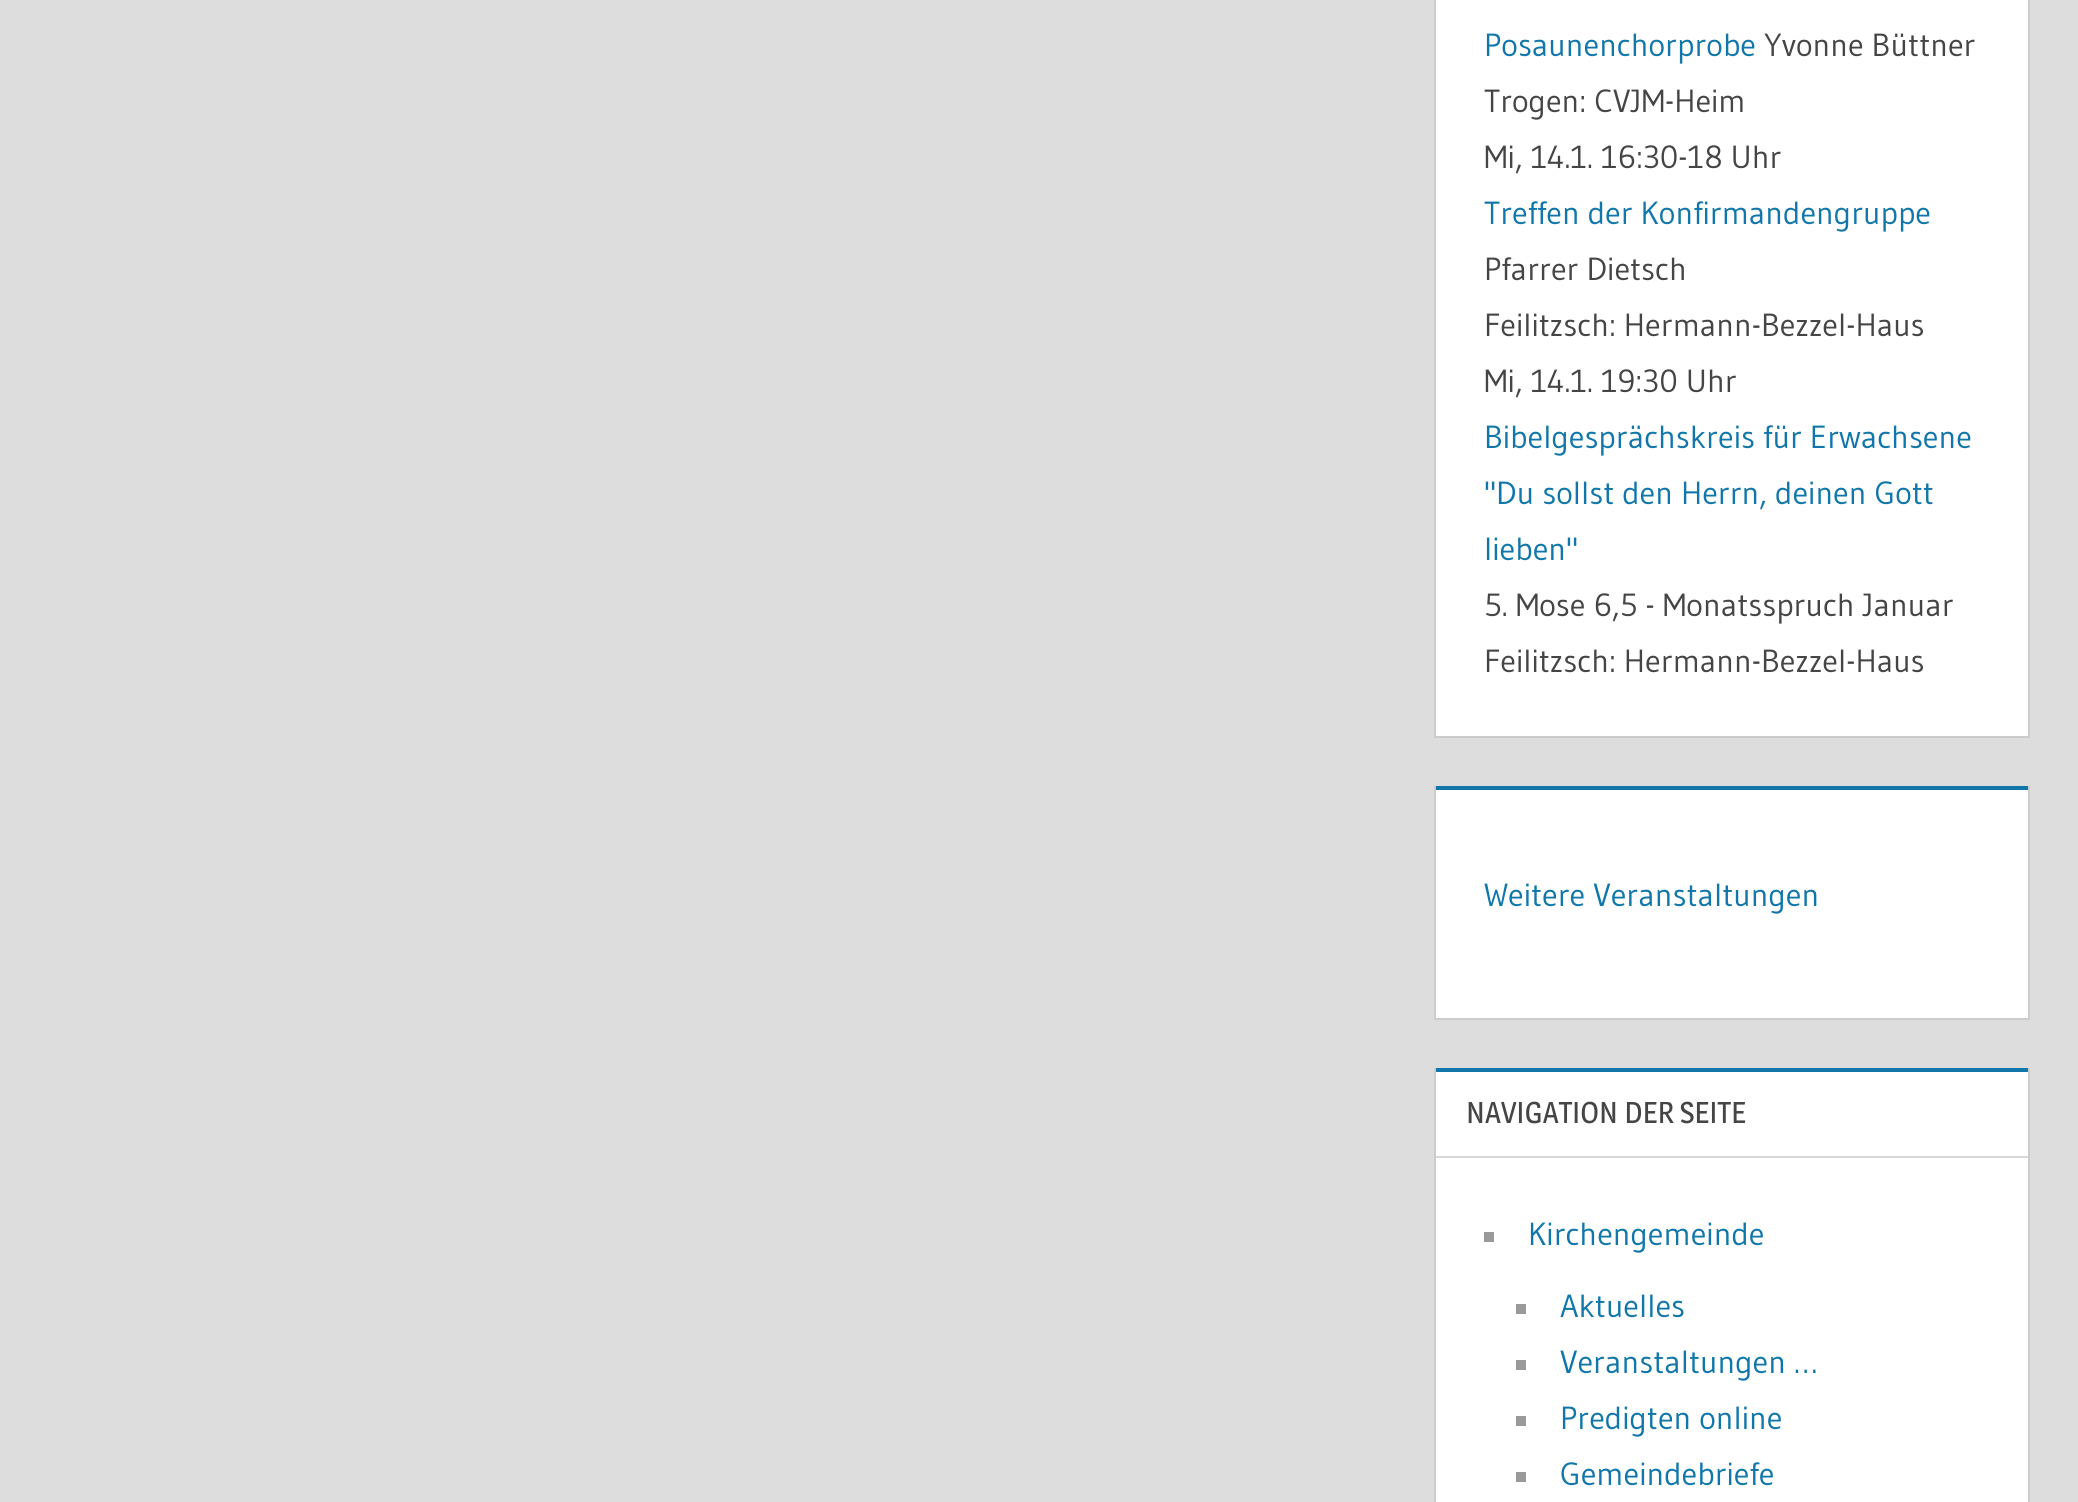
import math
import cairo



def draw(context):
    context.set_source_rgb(221 / 255, 221 / 255, 221 / 255)
    context.paint()
    context.set_source_rgb(1, 1, 1)
    context.rectangle(1434, 0, 596, 738)
    context.fill()
    context.set_source_rgb(204 / 255, 204 / 255, 204 / 255)
    context.new_path()
    context.move_to(2030, -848)
    context.line_to(2030, 738)
    context.line_to(2028, 736)
    context.line_to(2028, -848)
    context.close_path()
    context.fill()
    context.set_source_rgba(0, 0, 0, 0.2)
    context.new_path()
    context.move_to(2030, 738)
    context.line_to(1434, 738)
    context.line_to(1436, 736)
    context.line_to(2028, 736)
    context.close_path()
    context.fill()
    context.new_path()
    context.move_to(1434, 738)
    context.line_to(1434, -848)
    context.line_to(1436, -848)
    context.line_to(1436, 736)
    context.close_path()
    context.fill()
    context.set_source_rgb(1, 1, 1)
    context.rectangle(1434, 786, 596, 234)
    context.fill()
    context.set_source_rgb(17 / 255, 119 / 255, 170 / 255)
    context.rectangle(1436, 786, 592, 4)
    context.fill()
    context.set_source_rgb(204 / 255, 204 / 255, 204 / 255)
    context.new_path()
    context.move_to(2030, 786)
    context.line_to(2030, 1020)
    context.line_to(2028, 1018)
    context.line_to(2028, 786)
    context.close_path()
    context.fill()
    context.set_source_rgba(0, 0, 0, 0.2)
    context.new_path()
    context.move_to(2030, 1020)
    context.line_to(1434, 1020)
    context.line_to(1436, 1018)
    context.line_to(2028, 1018)
    context.close_path()
    context.fill()
    context.new_path()
    context.move_to(1434, 1020)
    context.line_to(1434, 786)
    context.line_to(1436, 786)
    context.line_to(1436, 1018)
    context.close_path()
    context.fill()
    context.set_source_rgb(1, 1, 1)
    context.rectangle(1436, 1072, 592, 430)
    context.fill()
    context.set_source_rgb(17 / 255, 119 / 255, 170 / 255)
    context.rectangle(1436, 1068, 592, 4)
    context.fill()
    context.set_source_rgb(204 / 255, 204 / 255, 204 / 255)
    context.new_path()
    context.move_to(2030, 1068)
    context.line_to(2030, 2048)
    context.line_to(2028, 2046)
    context.line_to(2028, 1068)
    context.close_path()
    context.fill()
    context.new_path()
    context.move_to(1434, 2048)
    context.line_to(1434, 1068)
    context.line_to(1436, 1068)
    context.line_to(1436, 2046)
    context.close_path()
    context.fill()
    context.set_source_rgb(217 / 255, 217 / 255, 217 / 255)
    context.rectangle(1436, 1156, 592, 2)
    context.fill()
    context.set_source_rgb(153 / 255, 153 / 255, 153 / 255)
    context.rectangle(1484, 1232, 10, 10)
    context.fill()
    context.rectangle(1516, 1304, 10, 10)
    context.fill()
    context.rectangle(1516, 1360, 10, 10)
    context.fill()
    context.rectangle(1516, 1416, 10, 10)
    context.fill()
    context.rectangle(1516, 1472, 10, 10)
    context.fill()
    context.select_font_face("Gudea")
    context.set_font_size(32)
    context.set_source_rgb(17 / 255, 119 / 255, 170 / 255)
    context.move_to(1484, 56)
    context.show_text("Posaunenchorprobe")
    context.set_source_rgb(69 / 255, 69 / 255, 69 / 255)
    context.move_to(1764, 56)
    context.show_text("Yvonne Büttner")
    context.move_to(1484, 112)
    context.show_text("Trogen: CVJM-Heim")
    context.move_to(1484, 168)
    context.show_text("Mi, 14.1. 16:30-18 Uhr")
    context.set_source_rgb(17 / 255, 119 / 255, 170 / 255)
    context.move_to(1484, 224)
    context.show_text("Treffen der Konfirmandengruppe")
    context.set_source_rgb(69 / 255, 69 / 255, 69 / 255)
    context.move_to(1484, 280)
    context.show_text("Pfarrer Dietsch")
    context.move_to(1484, 336)
    context.show_text("Feilitzsch: Hermann-Bezzel-Haus")
    context.move_to(1484, 392)
    context.show_text("Mi, 14.1. 19:30 Uhr")
    context.set_source_rgb(17 / 255, 119 / 255, 170 / 255)
    context.move_to(1484, 448)
    context.show_text("Bibelgesprächskreis für Erwachsene")
    context.move_to(1484, 504)
    context.show_text("\"Du sollst den Herrn, deinen Gott")
    context.move_to(1484, 560)
    context.show_text("lieben\"")
    context.set_source_rgb(69 / 255, 69 / 255, 69 / 255)
    context.move_to(1484, 616)
    context.show_text("5. Mose 6,5 - Monatsspruch Januar")
    context.move_to(1484, 672)
    context.show_text("Feilitzsch: Hermann-Bezzel-Haus")
    context.set_source_rgb(17 / 255, 119 / 255, 170 / 255)
    context.move_to(1484, 906)
    context.show_text("Weitere Veranstaltungen")
    context.select_font_face("Magra")
    context.set_font_size(30)
    context.set_source_rgb(69 / 255, 69 / 255, 69 / 255)
    context.move_to(1466, 1123)
    context.show_text("NAVIGATION DER SEITE")
    context.select_font_face("Gudea")
    context.set_font_size(32)
    context.set_source_rgb(17 / 255, 119 / 255, 170 / 255)
    context.move_to(1528, 1245)
    context.show_text("Kirchengemeinde")
    context.move_to(1560, 1317)
    context.show_text("Aktuelles")
    context.move_to(1560, 1373)
    context.show_text("Veranstaltungen …")
    context.move_to(1560, 1429)
    context.show_text("Predigten online")
    context.move_to(1560, 1485)
    context.show_text("Gemeindebriefe")


surface = cairo.ImageSurface(cairo.Format.RGB24, 2078, 1502)
context = cairo.Context(surface)
options = cairo.FontOptions()
options.set_hint_metrics(cairo.HintMetrics.OFF)
options.set_hint_style(cairo.HintStyle.NONE)
context.set_font_options(options)
context.set_miter_limit(4)
draw(context)
surface.write_to_png("out.png")
